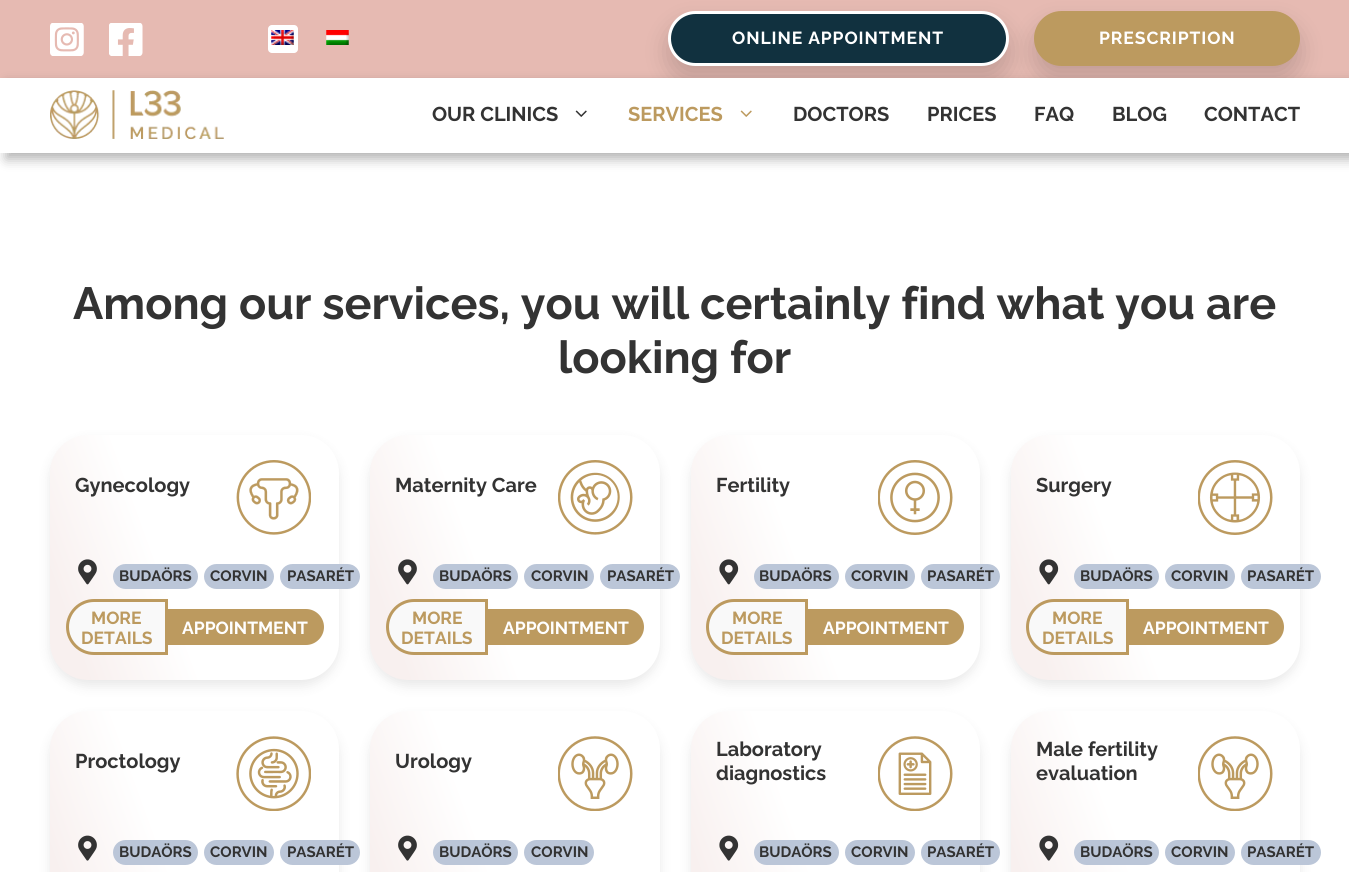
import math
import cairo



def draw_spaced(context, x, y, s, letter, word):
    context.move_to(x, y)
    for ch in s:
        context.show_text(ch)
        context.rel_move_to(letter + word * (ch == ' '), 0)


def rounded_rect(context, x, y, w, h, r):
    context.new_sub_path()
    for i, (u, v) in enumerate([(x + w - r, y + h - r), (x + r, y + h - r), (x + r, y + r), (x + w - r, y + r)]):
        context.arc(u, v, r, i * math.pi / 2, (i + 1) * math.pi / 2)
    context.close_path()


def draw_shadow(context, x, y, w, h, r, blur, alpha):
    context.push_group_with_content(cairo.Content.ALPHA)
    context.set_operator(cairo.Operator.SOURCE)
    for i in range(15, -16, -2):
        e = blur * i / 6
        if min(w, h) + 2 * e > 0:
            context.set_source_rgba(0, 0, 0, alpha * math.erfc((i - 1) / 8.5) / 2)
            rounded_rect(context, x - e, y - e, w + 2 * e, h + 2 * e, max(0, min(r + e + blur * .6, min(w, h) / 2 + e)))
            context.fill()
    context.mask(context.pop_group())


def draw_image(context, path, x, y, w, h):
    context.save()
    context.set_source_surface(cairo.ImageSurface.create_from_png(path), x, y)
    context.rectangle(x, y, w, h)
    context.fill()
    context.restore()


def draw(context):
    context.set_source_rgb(1, 1, 1)
    context.paint()
    context.set_source_rgb(230 / 255, 186 / 255, 178 / 255)
    context.rectangle(0, 0, 1349, 78)
    context.fill()
    draw_image(context, "images/1.png", 50, 23, 34, 33)
    draw_image(context, "images/2.png", 109, 23, 34, 33)
    context.set_source_rgb(1, 1, 1)
    rounded_rect(context, 268, 25, 30, 28, 4)
    context.fill()
    draw_image(context, "images/3.png", 271, 30, 23, 15)
    draw_image(context, "images/4.png", 326, 30, 23, 15)
    context.set_source_rgb(0, 0, 0)
    draw_shadow(context, 668, 24, 341, 55, 27.5, 12.5, 0.16)
    context.set_source_rgb(17 / 255, 49 / 255, 63 / 255)
    rounded_rect(context, 669.5, 12.5, 338, 52, 26)
    context.fill_preserve()
    context.set_source_rgb(1, 1, 1)
    context.set_line_width(3)
    context.stroke()
    context.set_source_rgb(0, 0, 0)
    draw_shadow(context, 1034, 24, 266, 55, 27.5, 12.5, 0.16)
    context.set_source_rgb(188 / 255, 154 / 255, 95 / 255)
    rounded_rect(context, 1035.5, 12.5, 263, 52, 26)
    context.fill_preserve()
    context.stroke()
    context.set_source_rgb(0, 0, 0)
    draw_shadow(context, 6, 84, 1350, 75, 0, 6, 0.3)
    context.set_source_rgb(1, 1, 1)
    context.rectangle(0, 78, 1349, 75)
    context.fill()
    draw_image(context, "images/5.png", 50, 90, 174, 50)
    draw_image(context, "images/6.png", 575, 110, 12, 7)
    draw_image(context, "images/7.png", 740, 110, 12, 7)
    context.set_source_rgb(0, 0, 0)
    draw_shadow(context, 50, 441, 289, 245, 38, 6, 0.09)
    gradient = cairo.LinearGradient(28, 618, 361, 497)
    gradient.add_color_stop_rgba(0.1, 248 / 255, 240 / 255, 239 / 255, 1)
    gradient.add_color_stop_rgba(0.4, 1, 1, 1, 1)
    context.set_source(gradient)
    rounded_rect(context, 50, 435, 289, 245, 38)
    context.fill()
    draw_image(context, "images/8.png", 236, 460, 75, 75)
    draw_image(context, "images/9.png", 78, 559, 19, 26)
    context.set_source_rgb(187 / 255, 198 / 255, 216 / 255)
    rounded_rect(context, 113, 564, 85, 25, 12.5)
    context.fill()
    rounded_rect(context, 204, 564, 70, 25, 12.5)
    context.fill()
    rounded_rect(context, 280, 564, 80, 25, 12.5)
    context.fill()
    context.set_source_rgb(249 / 255, 249 / 255, 249 / 255)
    context.new_path()
    context.move_to(94, 600.5)
    context.line_to(166.5, 600.5)
    context.line_to(166.5, 653.5)
    context.line_to(94, 653.5)
    context.curve_to(79.5, 653.5, 67.5, 641.5, 67.5, 627)
    context.curve_to(67.5, 612.5, 79.5, 600.5, 94, 600.5)
    context.close_path()
    context.fill_preserve()
    context.set_source_rgb(188 / 255, 154 / 255, 95 / 255)
    context.stroke()
    context.new_path()
    context.move_to(169.5, 610.5)
    context.line_to(306, 610.5)
    context.curve_to(315, 610.5, 322.5, 618, 322.5, 627)
    context.curve_to(322.5, 636, 315, 643.5, 306, 643.5)
    context.line_to(169.5, 643.5)
    context.close_path()
    context.fill_preserve()
    context.stroke()
    context.set_source_rgb(0, 0, 0)
    draw_shadow(context, 370, 441, 290, 245, 38, 6, 0.09)
    gradient = cairo.LinearGradient(348, 618, 682, 497)
    gradient.add_color_stop_rgba(0.1, 248 / 255, 240 / 255, 239 / 255, 1)
    gradient.add_color_stop_rgba(0.4, 1, 1, 1, 1)
    context.set_source(gradient)
    rounded_rect(context, 370, 435, 290, 245, 38)
    context.fill()
    draw_image(context, "images/10.png", 558, 460, 75, 75)
    draw_image(context, "images/11.png", 398, 559, 19, 26)
    context.set_source_rgb(187 / 255, 198 / 255, 216 / 255)
    rounded_rect(context, 433, 564, 85, 25, 12.5)
    context.fill()
    rounded_rect(context, 524, 564, 70, 25, 12.5)
    context.fill()
    rounded_rect(context, 600, 564, 80, 25, 12.5)
    context.fill()
    context.set_source_rgb(249 / 255, 249 / 255, 249 / 255)
    context.new_path()
    context.move_to(414, 600.5)
    context.line_to(486.5, 600.5)
    context.line_to(486.5, 653.5)
    context.line_to(414, 653.5)
    context.curve_to(399.5, 653.5, 387.5, 641.5, 387.5, 627)
    context.curve_to(387.5, 612.5, 399.5, 600.5, 414, 600.5)
    context.close_path()
    context.fill_preserve()
    context.set_source_rgb(188 / 255, 154 / 255, 95 / 255)
    context.stroke()
    context.new_path()
    context.move_to(489.5, 610.5)
    context.line_to(626, 610.5)
    context.curve_to(635, 610.5, 642.5, 618, 642.5, 627)
    context.curve_to(642.5, 636, 635, 643.5, 626, 643.5)
    context.line_to(489.5, 643.5)
    context.close_path()
    context.fill_preserve()
    context.stroke()
    context.set_source_rgb(0, 0, 0)
    draw_shadow(context, 691, 441, 289, 245, 38, 6, 0.09)
    gradient = cairo.LinearGradient(669, 618, 1002, 497)
    gradient.add_color_stop_rgba(0.1, 248 / 255, 240 / 255, 239 / 255, 1)
    gradient.add_color_stop_rgba(0.4, 1, 1, 1, 1)
    context.set_source(gradient)
    rounded_rect(context, 691, 435, 289, 245, 38)
    context.fill()
    draw_image(context, "images/12.png", 878, 460, 75, 75)
    draw_image(context, "images/13.png", 719, 559, 20, 26)
    context.set_source_rgb(187 / 255, 198 / 255, 216 / 255)
    rounded_rect(context, 754, 564, 85, 25, 12.5)
    context.fill()
    rounded_rect(context, 845, 564, 70, 25, 12.5)
    context.fill()
    rounded_rect(context, 921, 564, 79, 25, 12.5)
    context.fill()
    context.set_source_rgb(249 / 255, 249 / 255, 249 / 255)
    context.new_path()
    context.move_to(734, 600.5)
    context.line_to(806.5, 600.5)
    context.line_to(806.5, 653.5)
    context.line_to(734, 653.5)
    context.curve_to(719.5, 653.5, 707.5, 641.5, 707.5, 627)
    context.curve_to(707.5, 612.5, 719.5, 600.5, 734, 600.5)
    context.close_path()
    context.fill_preserve()
    context.set_source_rgb(188 / 255, 154 / 255, 95 / 255)
    context.stroke()
    context.new_path()
    context.move_to(809.5, 610.5)
    context.line_to(946, 610.5)
    context.curve_to(955, 610.5, 962.5, 618, 962.5, 627)
    context.curve_to(962.5, 636, 955, 643.5, 946, 643.5)
    context.line_to(809.5, 643.5)
    context.close_path()
    context.fill_preserve()
    context.stroke()
    context.set_source_rgb(0, 0, 0)
    draw_shadow(context, 1011, 441, 289, 245, 38, 6, 0.09)
    gradient = cairo.LinearGradient(989, 618, 1322, 497)
    gradient.add_color_stop_rgba(0.1, 248 / 255, 240 / 255, 239 / 255, 1)
    gradient.add_color_stop_rgba(0.4, 1, 1, 1, 1)
    context.set_source(gradient)
    rounded_rect(context, 1011, 435, 289, 245, 38)
    context.fill()
    draw_image(context, "images/14.png", 1198, 460, 75, 75)
    draw_image(context, "images/13.png", 1039, 559, 20, 26)
    context.set_source_rgb(187 / 255, 198 / 255, 216 / 255)
    rounded_rect(context, 1074, 564, 85, 25, 12.5)
    context.fill()
    rounded_rect(context, 1165, 564, 70, 25, 12.5)
    context.fill()
    rounded_rect(context, 1241, 564, 80, 25, 12.5)
    context.fill()
    context.set_source_rgb(249 / 255, 249 / 255, 249 / 255)
    context.new_path()
    context.move_to(1054, 600.5)
    context.line_to(1127.5, 600.5)
    context.line_to(1127.5, 653.5)
    context.line_to(1054, 653.5)
    context.curve_to(1039.5, 653.5, 1027.5, 641.5, 1027.5, 627)
    context.curve_to(1027.5, 612.5, 1039.5, 600.5, 1054, 600.5)
    context.close_path()
    context.fill_preserve()
    context.set_source_rgb(188 / 255, 154 / 255, 95 / 255)
    context.stroke()
    context.new_path()
    context.move_to(1130.5, 610.5)
    context.line_to(1266, 610.5)
    context.curve_to(1275, 610.5, 1282.5, 618, 1282.5, 627)
    context.curve_to(1282.5, 636, 1275, 643.5, 1266, 643.5)
    context.line_to(1130.5, 643.5)
    context.close_path()
    context.fill_preserve()
    context.stroke()
    context.set_source_rgb(0, 0, 0)
    draw_shadow(context, 50, 718, 289, 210, 38, 6, 0.09)
    gradient = cairo.LinearGradient(28, 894, 361, 773)
    gradient.add_color_stop_rgba(0.1, 248 / 255, 240 / 255, 239 / 255, 1)
    gradient.add_color_stop_rgba(0.4, 1, 1, 1, 1)
    context.set_source(gradient)
    rounded_rect(context, 50, 711, 289, 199, 38)
    context.fill()
    draw_image(context, "images/15.png", 236, 736, 75, 75)
    draw_image(context, "images/16.png", 78, 835, 19, 26)
    context.set_source_rgb(187 / 255, 198 / 255, 216 / 255)
    rounded_rect(context, 113, 840, 85, 25, 12.5)
    context.fill()
    rounded_rect(context, 204, 840, 70, 25, 12.5)
    context.fill()
    rounded_rect(context, 280, 840, 80, 25, 12.5)
    context.fill()
    context.set_source_rgb(0, 0, 0)
    draw_shadow(context, 370, 718, 290, 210, 38, 6, 0.09)
    gradient = cairo.LinearGradient(348, 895, 682, 773)
    gradient.add_color_stop_rgba(0.1, 248 / 255, 240 / 255, 239 / 255, 1)
    gradient.add_color_stop_rgba(0.4, 1, 1, 1, 1)
    context.set_source(gradient)
    rounded_rect(context, 370, 711, 290, 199, 38)
    context.fill()
    draw_image(context, "images/17.png", 558, 736, 75, 75)
    draw_image(context, "images/18.png", 398, 835, 19, 26)
    context.set_source_rgb(187 / 255, 198 / 255, 216 / 255)
    rounded_rect(context, 433, 840, 85, 25, 12.5)
    context.fill()
    rounded_rect(context, 524, 840, 70, 25, 12.5)
    context.fill()
    context.set_source_rgb(0, 0, 0)
    draw_shadow(context, 691, 718, 289, 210, 38, 6, 0.09)
    gradient = cairo.LinearGradient(669, 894, 1002, 773)
    gradient.add_color_stop_rgba(0.1, 248 / 255, 240 / 255, 239 / 255, 1)
    gradient.add_color_stop_rgba(0.4, 1, 1, 1, 1)
    context.set_source(gradient)
    rounded_rect(context, 691, 711, 289, 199, 38)
    context.fill()
    draw_image(context, "images/19.png", 878, 736, 75, 75)
    draw_image(context, "images/20.png", 719, 835, 20, 26)
    context.set_source_rgb(187 / 255, 198 / 255, 216 / 255)
    rounded_rect(context, 754, 840, 85, 25, 12.5)
    context.fill()
    rounded_rect(context, 845, 840, 70, 25, 12.5)
    context.fill()
    rounded_rect(context, 921, 840, 79, 25, 12.5)
    context.fill()
    context.set_source_rgb(0, 0, 0)
    draw_shadow(context, 1011, 718, 289, 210, 38, 6, 0.09)
    gradient = cairo.LinearGradient(989, 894, 1322, 773)
    gradient.add_color_stop_rgba(0.1, 248 / 255, 240 / 255, 239 / 255, 1)
    gradient.add_color_stop_rgba(0.4, 1, 1, 1, 1)
    context.set_source(gradient)
    rounded_rect(context, 1011, 711, 289, 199, 38)
    context.fill()
    draw_image(context, "images/17.png", 1198, 736, 75, 75)
    draw_image(context, "images/20.png", 1039, 835, 20, 26)
    context.set_source_rgb(187 / 255, 198 / 255, 216 / 255)
    rounded_rect(context, 1074, 840, 85, 25, 12.5)
    context.fill()
    rounded_rect(context, 1165, 840, 70, 25, 12.5)
    context.fill()
    rounded_rect(context, 1241, 840, 80, 25, 12.5)
    context.fill()
    context.select_font_face("Raleway", cairo.FontSlant.NORMAL, cairo.FontWeight.BOLD)
    context.set_font_size(17.5)
    context.set_source_rgb(1, 1, 1)
    draw_spaced(context, 732, 44, "ONLINE APPOINTMENT", 0.9, 0)
    draw_spaced(context, 1099, 44, "PRESCRIPTION", 0.9, 0)
    context.set_font_size(20)
    context.set_source_rgb(51 / 255, 51 / 255, 51 / 255)
    context.move_to(432, 121)
    context.show_text("OUR CLINICS")
    context.set_source_rgb(188 / 255, 154 / 255, 95 / 255)
    context.move_to(628, 121)
    context.show_text("SERVICES")
    context.set_source_rgb(51 / 255, 51 / 255, 51 / 255)
    context.move_to(793, 121)
    context.show_text("DOCTORS")
    context.move_to(927, 121)
    context.show_text("PRICES")
    context.move_to(1034, 121)
    context.show_text("FAQ")
    context.move_to(1112, 121)
    context.show_text("BLOG")
    context.move_to(1204, 121)
    context.show_text("CONTACT")
    context.set_font_size(45)
    context.move_to(73, 319)
    context.show_text("Among our services, you will certainly find what you are")
    context.move_to(558, 373)
    context.show_text("looking for")
    context.set_font_size(20)
    context.move_to(75, 492)
    context.show_text("Gynecology")
    context.set_font_size(15)
    context.move_to(119, 581)
    context.show_text("BUDAÖRS")
    context.move_to(210, 581)
    context.show_text("CORVIN")
    context.move_to(287, 581)
    context.show_text("PASARÉT")
    context.set_font_size(17.5)
    context.set_source_rgb(188 / 255, 154 / 255, 95 / 255)
    context.move_to(91, 624)
    context.show_text("MORE")
    context.move_to(81, 644)
    context.show_text("DETAILS")
    context.set_source_rgb(1, 1, 1)
    context.move_to(182, 634)
    context.show_text("APPOINTMENT")
    context.set_font_size(20)
    context.set_source_rgb(51 / 255, 51 / 255, 51 / 255)
    context.move_to(395, 492)
    context.show_text("Maternity Care")
    context.set_font_size(15)
    context.move_to(439, 581)
    context.show_text("BUDAÖRS")
    context.move_to(531, 581)
    context.show_text("CORVIN")
    context.move_to(607, 581)
    context.show_text("PASARÉT")
    context.set_font_size(17.5)
    context.set_source_rgb(188 / 255, 154 / 255, 95 / 255)
    context.move_to(412, 624)
    context.show_text("MORE")
    context.move_to(401, 644)
    context.show_text("DETAILS")
    context.set_source_rgb(1, 1, 1)
    context.move_to(503, 634)
    context.show_text("APPOINTMENT")
    context.set_font_size(20)
    context.set_source_rgb(51 / 255, 51 / 255, 51 / 255)
    context.move_to(716, 492)
    context.show_text("Fertility")
    context.set_font_size(15)
    context.move_to(759, 581)
    context.show_text("BUDAÖRS")
    context.move_to(851, 581)
    context.show_text("CORVIN")
    context.move_to(927, 581)
    context.show_text("PASARÉT")
    context.set_font_size(17.5)
    context.set_source_rgb(188 / 255, 154 / 255, 95 / 255)
    context.move_to(732, 624)
    context.show_text("MORE")
    context.move_to(721, 644)
    context.show_text("DETAILS")
    context.set_source_rgb(1, 1, 1)
    context.move_to(823, 634)
    context.show_text("APPOINTMENT")
    context.set_font_size(20)
    context.set_source_rgb(51 / 255, 51 / 255, 51 / 255)
    context.move_to(1036, 492)
    context.show_text("Surgery")
    context.set_font_size(15)
    context.move_to(1080, 581)
    context.show_text("BUDAÖRS")
    context.move_to(1171, 581)
    context.show_text("CORVIN")
    context.move_to(1247, 581)
    context.show_text("PASARÉT")
    context.set_font_size(17.5)
    context.set_source_rgb(188 / 255, 154 / 255, 95 / 255)
    context.move_to(1052, 624)
    context.show_text("MORE")
    context.move_to(1042, 644)
    context.show_text("DETAILS")
    context.set_source_rgb(1, 1, 1)
    context.move_to(1143, 634)
    context.show_text("APPOINTMENT")
    context.set_font_size(20)
    context.set_source_rgb(51 / 255, 51 / 255, 51 / 255)
    context.move_to(75, 768)
    context.show_text("Proctology")
    context.set_font_size(15)
    context.move_to(119, 857)
    context.show_text("BUDAÖRS")
    context.move_to(210, 857)
    context.show_text("CORVIN")
    context.move_to(287, 857)
    context.show_text("PASARÉT")
    context.set_font_size(20)
    context.move_to(395, 768)
    context.show_text("Urology")
    context.set_font_size(15)
    context.move_to(439, 857)
    context.show_text("BUDAÖRS")
    context.move_to(531, 857)
    context.show_text("CORVIN")
    context.set_font_size(20)
    context.move_to(716, 756)
    context.show_text("Laboratory")
    context.move_to(716, 780)
    context.show_text("diagnostics")
    context.set_font_size(15)
    context.move_to(759, 857)
    context.show_text("BUDAÖRS")
    context.move_to(851, 857)
    context.show_text("CORVIN")
    context.move_to(927, 857)
    context.show_text("PASARÉT")
    context.set_font_size(20)
    context.move_to(1036, 756)
    context.show_text("Male fertility")
    context.move_to(1036, 780)
    context.show_text("evaluation")
    context.set_font_size(15)
    context.move_to(1080, 857)
    context.show_text("BUDAÖRS")
    context.move_to(1171, 857)
    context.show_text("CORVIN")
    context.move_to(1247, 857)
    context.show_text("PASARÉT")


surface = cairo.ImageSurface(cairo.Format.RGB24, 1349, 872)
context = cairo.Context(surface)
options = cairo.FontOptions()
options.set_hint_metrics(cairo.HintMetrics.OFF)
options.set_hint_style(cairo.HintStyle.NONE)
context.set_font_options(options)
context.set_miter_limit(4)
draw(context)
surface.write_to_png("out.png")
